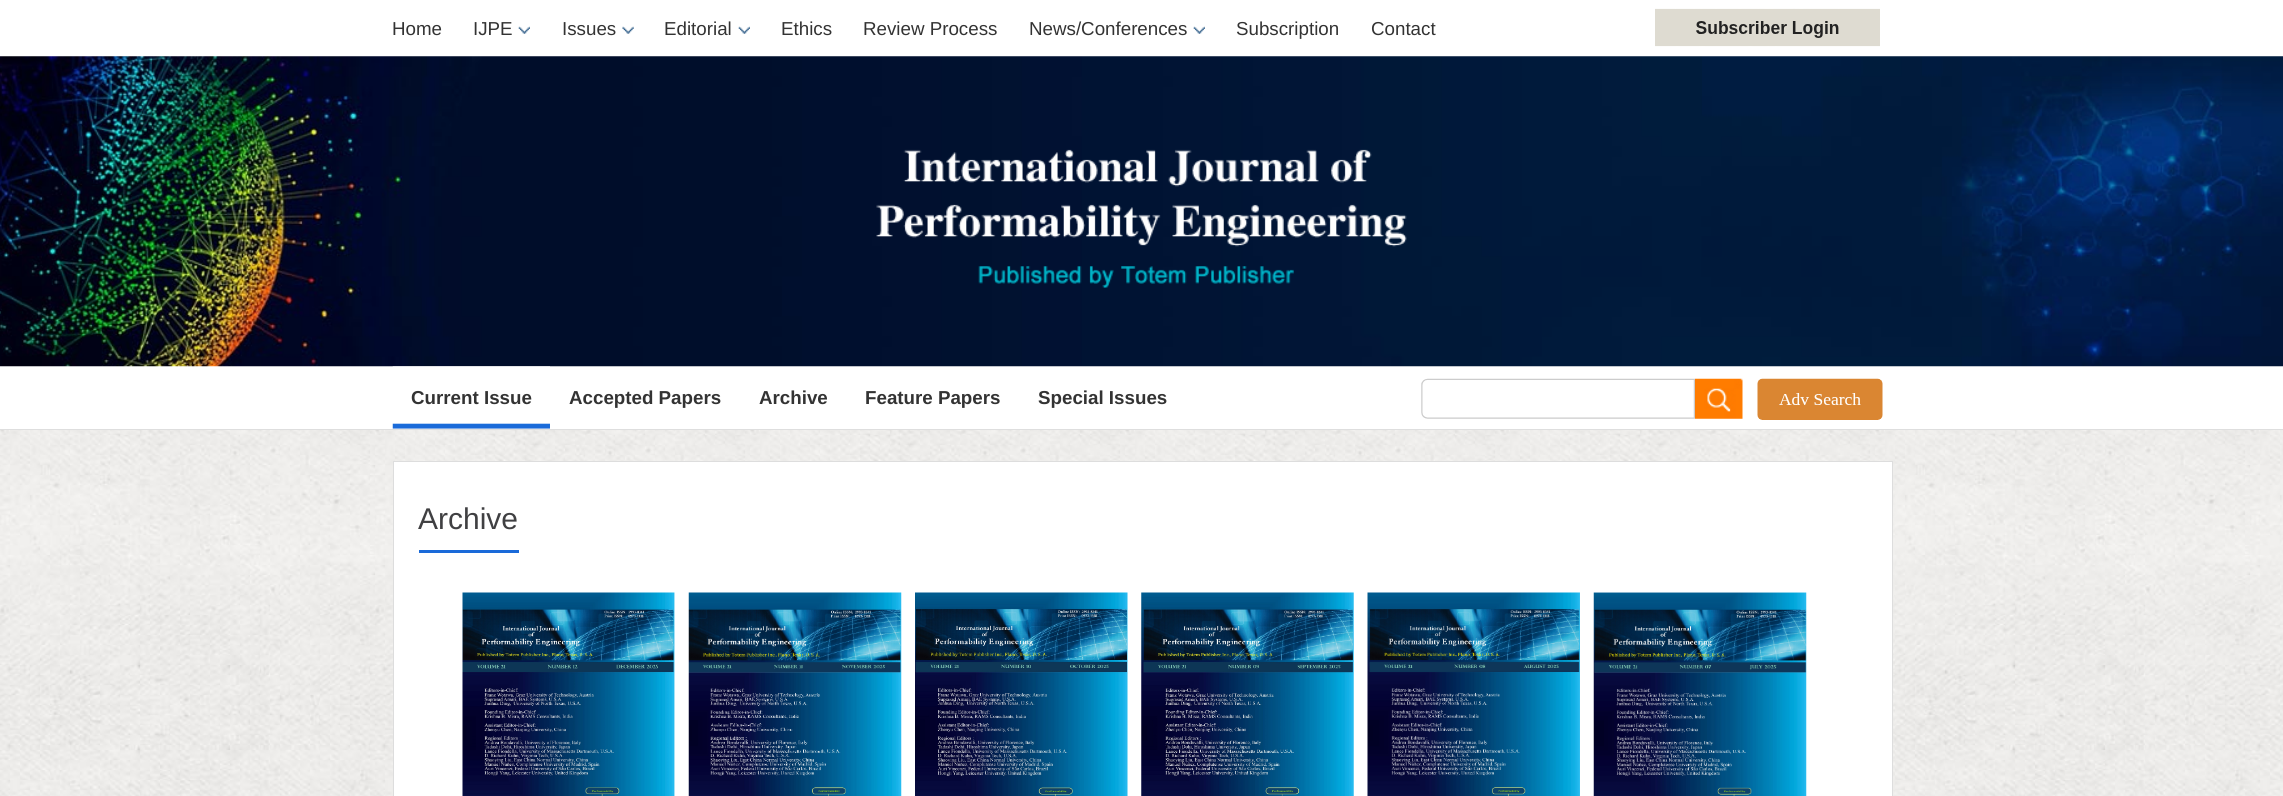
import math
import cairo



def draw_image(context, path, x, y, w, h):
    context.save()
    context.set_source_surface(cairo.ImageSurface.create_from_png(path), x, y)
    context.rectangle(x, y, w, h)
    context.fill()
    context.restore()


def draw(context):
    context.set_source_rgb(1, 1, 1)
    context.paint()
    draw_image(context, "images/1.png", 0, 430, 2283, 366)
    draw_image(context, "images/2.png", 518, 26, 12, 8)
    draw_image(context, "images/3.png", 622, 26, 12, 8)
    draw_image(context, "images/2.png", 738, 26, 12, 8)
    draw_image(context, "images/2.png", 1193, 26, 12, 8)
    draw_image(context, "images/4.png", 1655, 8, 225, 39)
    draw_image(context, "images/5.png", 0, 56, 2283, 311)
    draw_image(context, "images/6.png", 876, 149, 531, 139)
    context.set_source_rgb(222 / 255, 222 / 255, 222 / 255)
    context.rectangle(0, 429, 2283, 1)
    context.fill()
    draw_image(context, "images/7.png", 392, 366, 158, 63)
    draw_image(context, "images/8.png", 1421, 378, 462, 42)
    context.set_source_rgb(1, 1, 1)
    context.rectangle(393.5, 461.5, 1499, 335)
    context.fill_preserve()
    context.set_source_rgb(221 / 255, 221 / 255, 221 / 255)
    context.set_line_width(1)
    context.stroke()
    context.set_source_rgb(26 / 255, 106 / 255, 217 / 255)
    context.rectangle(419, 550, 100, 3)
    context.fill()
    draw_image(context, "images/9.png", 462, 592, 213, 204)
    draw_image(context, "images/10.png", 688, 592, 214, 204)
    draw_image(context, "images/11.png", 915, 592, 213, 204)
    draw_image(context, "images/12.png", 1141, 592, 213, 204)
    draw_image(context, "images/13.png", 1367, 592, 213, 204)
    draw_image(context, "images/14.png", 1593, 592, 214, 204)
    context.select_font_face("Liberation Sans")
    context.set_font_size(18.75)
    context.set_source_rgb(51 / 255, 51 / 255, 51 / 255)
    context.move_to(392, 35)
    context.show_text("Home")
    context.move_to(473, 35)
    context.show_text("IJPE")
    context.move_to(562, 35)
    context.show_text("Issues")
    context.move_to(664, 35)
    context.show_text("Editorial")
    context.move_to(781, 35)
    context.show_text("Ethics")
    context.move_to(863, 35)
    context.show_text("Review Process")
    context.move_to(1029, 35)
    context.show_text("News/Conferences")
    context.move_to(1236, 35)
    context.show_text("Subscription")
    context.move_to(1371, 35)
    context.show_text("Contact")
    context.select_font_face("Liberation Sans", cairo.FontSlant.NORMAL, cairo.FontWeight.BOLD)
    context.move_to(411, 404)
    context.show_text("Current Issue")
    context.move_to(569, 404)
    context.show_text("Accepted Papers")
    context.move_to(759, 404)
    context.show_text("Archive")
    context.move_to(865, 404)
    context.show_text("Feature Papers")
    context.move_to(1038, 404)
    context.show_text("Special Issues")
    context.select_font_face("Liberation Sans")
    context.set_font_size(30)
    context.set_source_rgb(64 / 255, 64 / 255, 66 / 255)
    context.move_to(418, 529)
    context.show_text("Archive")


surface = cairo.ImageSurface(cairo.Format.RGB24, 2283, 796)
context = cairo.Context(surface)
options = cairo.FontOptions()
options.set_hint_metrics(cairo.HintMetrics.OFF)
options.set_hint_style(cairo.HintStyle.NONE)
context.set_font_options(options)
context.set_miter_limit(4)
draw(context)
surface.write_to_png("out.png")
